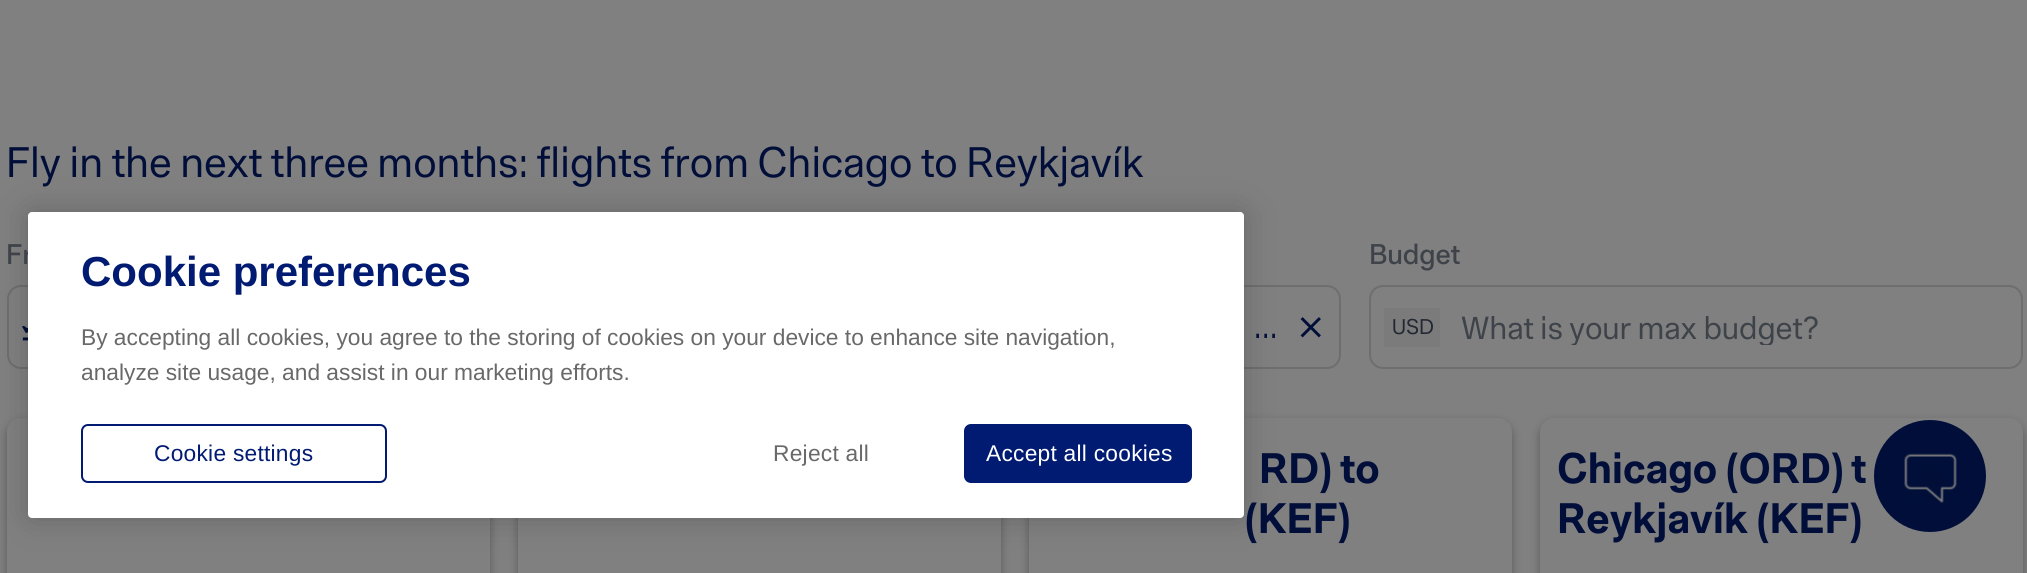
import math
import cairo



def draw_spaced(context, x, y, s, letter, word):
    context.move_to(x, y)
    for ch in s:
        context.show_text(ch)
        context.rel_move_to(letter + word * (ch == ' '), 0)


def rounded_rect(context, x, y, w, h, r):
    context.new_sub_path()
    for i, (u, v) in enumerate([(x + w - r, y + h - r), (x + r, y + h - r), (x + r, y + r), (x + w - r, y + r)]):
        context.arc(u, v, r, i * math.pi / 2, (i + 1) * math.pi / 2)
    context.close_path()


def draw_shadow(context, x, y, w, h, r, blur, alpha):
    context.push_group_with_content(cairo.Content.ALPHA)
    context.set_operator(cairo.Operator.SOURCE)
    for i in range(15, -16, -2):
        e = blur * i / 6
        if min(w, h) + 2 * e > 0:
            context.set_source_rgba(0, 0, 0, alpha * math.erfc((i - 1) / 8.5) / 2)
            rounded_rect(context, x - e, y - e, w + 2 * e, h + 2 * e, max(0, min(r + e + blur * .6, min(w, h) / 2 + e)))
            context.fill()
    context.mask(context.pop_group())


def draw_image(context, path, x, y, w, h):
    context.save()
    context.set_source_surface(cairo.ImageSurface.create_from_png(path), x, y)
    context.rectangle(x, y, w, h)
    context.fill()
    context.restore()


def draw(context):
    context.set_source_rgb(128 / 255, 128 / 255, 128 / 255)
    context.paint()
    rounded_rect(context, 8, 286, 651, 82, 13)
    context.set_source_rgb(109 / 255, 110 / 255, 112 / 255)
    context.stroke()
    draw_image(context, "images/1.png", 22, 326, 6, 15)
    rounded_rect(context, 1370, 286, 652, 82, 13)
    context.stroke()
    context.set_source_rgb(123 / 255, 123 / 255, 124 / 255)
    context.rectangle(1384, 308, 56, 39)
    context.fill()
    rounded_rect(context, 689, 286, 651, 82, 13)
    context.set_source_rgb(109 / 255, 110 / 255, 112 / 255)
    context.stroke()
    draw_image(context, "images/2.png", 1300, 317, 21, 21)
    context.set_source_rgb(0, 0, 0)
    draw_shadow(context, 7, 422, 483, 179, 14, 4.5, 0.3)
    context.set_source_rgb(128 / 255, 128 / 255, 128 / 255)
    rounded_rect(context, 7, 418, 483, 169, 14)
    context.fill()
    context.set_source_rgb(0, 0, 0)
    draw_shadow(context, 518, 422, 483, 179, 14, 4.5, 0.3)
    context.set_source_rgb(128 / 255, 128 / 255, 128 / 255)
    context.rectangle(518, 518, 483, 55)
    context.fill()
    context.set_source_rgb(0, 0, 0)
    draw_shadow(context, 1029, 422, 483, 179, 14, 4.5, 0.3)
    context.set_source_rgb(128 / 255, 128 / 255, 128 / 255)
    rounded_rect(context, 1029, 418, 483, 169, 14)
    context.fill()
    context.set_source_rgb(0, 0, 0)
    draw_shadow(context, 1540, 422, 483, 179, 14, 4.5, 0.3)
    context.set_source_rgb(128 / 255, 128 / 255, 128 / 255)
    rounded_rect(context, 1540, 418, 483, 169, 14)
    context.fill()
    context.set_source_rgb(0, 0, 0)
    draw_shadow(context, 28, 212, 1216, 306, 4, 16, 0.2)
    context.set_source_rgb(0, 14 / 255, 57 / 255)
    context.arc(1930, 476, 56, 0, 2 * math.pi)
    context.fill()
    draw_image(context, "images/3.png", 1904, 453, 53, 50)
    context.select_font_face("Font")
    context.set_font_size(42)
    context.move_to(6, 177)
    context.show_text("Fly in the next three months: flights from Chicago to Reykjavík")
    context.select_font_face("Font Medium")
    context.set_font_size(28)
    context.set_source_rgb(62 / 255, 67 / 255, 74 / 255)
    context.move_to(6, 264)
    context.show_text("Fr")
    context.move_to(1369, 264)
    context.show_text("Budget")
    context.select_font_face("Font")
    context.set_font_size(21)
    context.set_source_rgb(34 / 255, 40 / 255, 50 / 255)
    context.move_to(1392, 334)
    context.show_text("USD")
    context.save()
    context.rectangle(1461, 308, 525, 37)
    context.clip()
    context.set_font_size(31.5)
    context.set_source_rgb(62 / 255, 67 / 255, 74 / 255)
    context.move_to(1461, 339)
    context.show_text("What is your max budget?")
    context.restore()
    context.set_font_size(31.5)
    context.set_source_rgb(0, 14 / 255, 57 / 255)
    context.move_to(1254, 338)
    context.show_text("…")
    context.select_font_face("Font", cairo.FontSlant.NORMAL, cairo.FontWeight.BOLD)
    context.set_font_size(42)
    context.move_to(1259, 483)
    context.show_text("RD)")
    context.move_to(1340, 483)
    context.show_text("to")
    context.move_to(1244, 533)
    context.show_text("(KEF)")
    context.move_to(1557, 483)
    context.show_text("Chicago (ORD)")
    context.move_to(1851, 483)
    context.show_text("t")
    context.move_to(1557, 533)
    context.show_text("Reykjavík (KEF)")
    context.set_source_rgb(1, 1, 1)
    rounded_rect(context, 28, 212, 1216, 306, 4)
    context.fill()
    context.select_font_face("Liberation Sans", cairo.FontSlant.NORMAL, cairo.FontWeight.BOLD)
    context.set_source_rgb(0, 27 / 255, 113 / 255)
    context.move_to(81, 286)
    context.show_text("Cookie preferences")
    context.select_font_face("Liberation Sans")
    context.set_font_size(22.75)
    context.set_source_rgb(105 / 255, 105 / 255, 105 / 255)
    context.move_to(81, 345)
    context.show_text("By accepting all cookies, you agree to the storing of cookies on your device to enhance site navigation,")
    context.move_to(81, 380)
    context.show_text("analyze site usage, and assist in our marketing efforts.")
    rounded_rect(context, 82, 425, 304, 57, 6)
    context.set_source_rgb(0, 27 / 255, 113 / 255)
    context.stroke()
    draw_spaced(context, 154, 461, "Cookie settings", 0.25, 0)
    context.set_source_rgb(105 / 255, 105 / 255, 105 / 255)
    draw_spaced(context, 773, 461, "Reject all", 0.25, 0)
    context.set_source_rgb(0, 27 / 255, 113 / 255)
    rounded_rect(context, 965, 425, 226, 57, 6)
    context.fill_preserve()
    context.stroke()
    context.set_source_rgb(1, 1, 1)
    draw_spaced(context, 986, 461, "Accept all cookies", 0.25, 0)


surface = cairo.ImageSurface(cairo.Format.RGB24, 2027, 573)
context = cairo.Context(surface)
options = cairo.FontOptions()
options.set_hint_metrics(cairo.HintMetrics.OFF)
options.set_hint_style(cairo.HintStyle.NONE)
context.set_font_options(options)
context.set_miter_limit(4)
draw(context)
surface.write_to_png("out.png")
